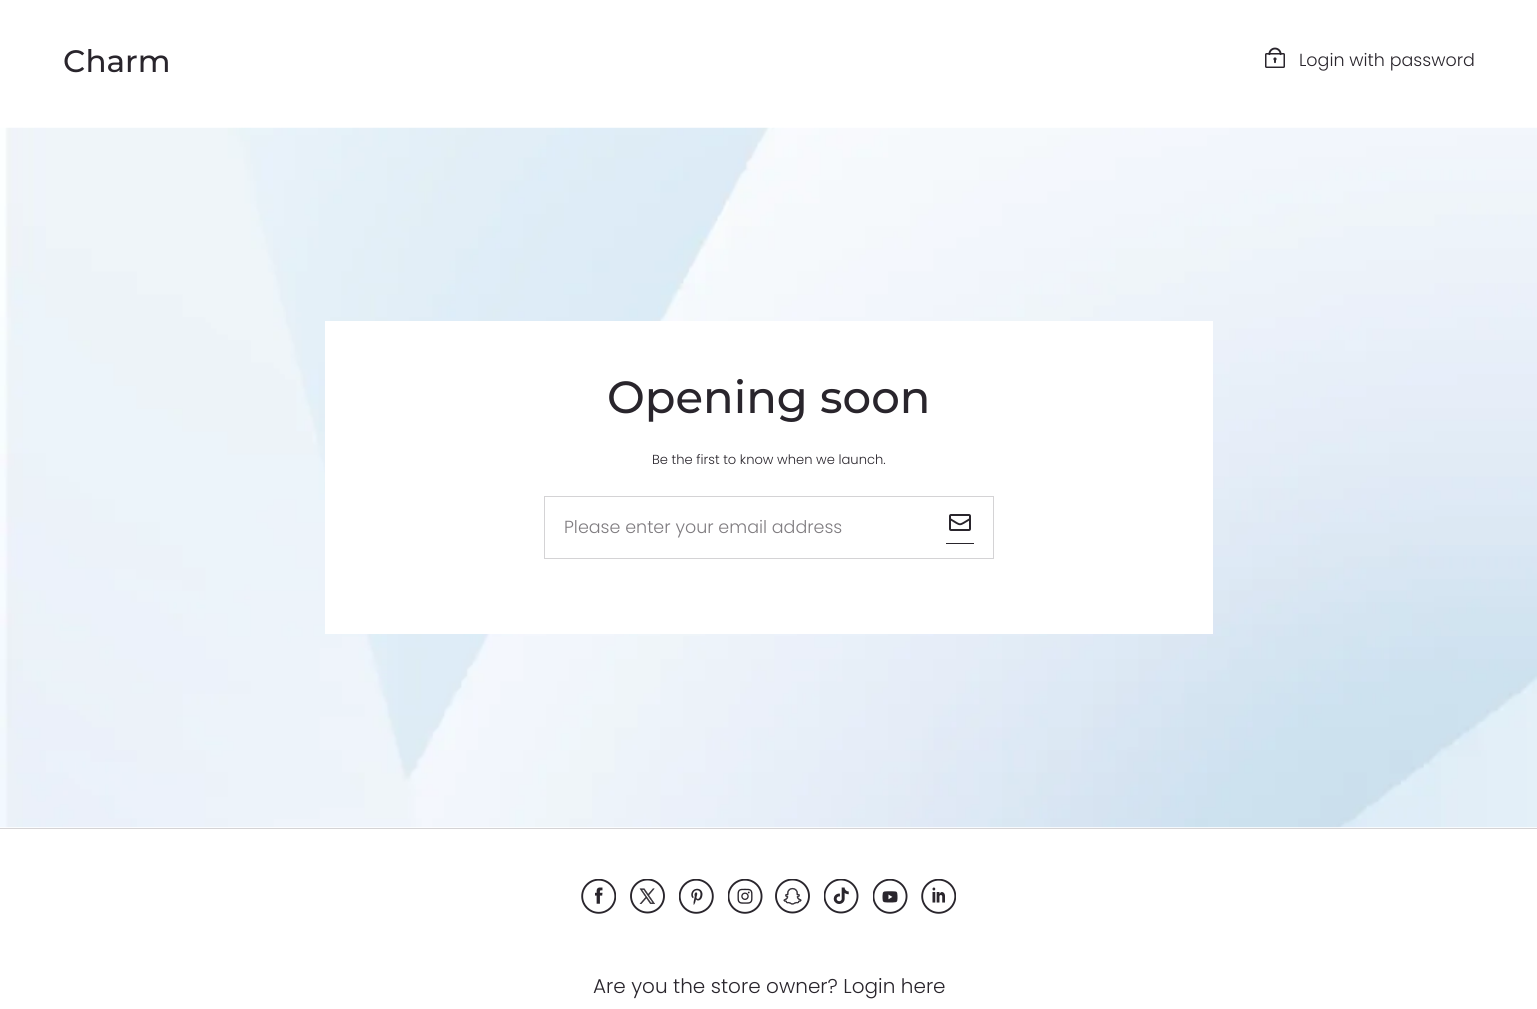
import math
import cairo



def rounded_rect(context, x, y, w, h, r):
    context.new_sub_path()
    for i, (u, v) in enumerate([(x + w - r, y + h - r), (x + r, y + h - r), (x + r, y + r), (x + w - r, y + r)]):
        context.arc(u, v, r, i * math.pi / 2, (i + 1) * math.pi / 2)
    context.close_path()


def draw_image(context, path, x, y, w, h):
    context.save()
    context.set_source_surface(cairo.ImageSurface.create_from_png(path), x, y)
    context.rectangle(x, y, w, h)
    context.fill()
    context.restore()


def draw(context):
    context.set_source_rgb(1, 1, 1)
    context.paint()
    draw_image(context, "images/1.png", 1265, 47, 20, 21)
    draw_image(context, "images/2.png", 0, 127, 1537, 701)
    context.set_source_rgb(1, 1, 1)
    context.rectangle(325, 321, 888, 313)
    context.fill()
    rounded_rect(context, 950, 515, 20, 15, 1)
    context.set_source_rgb(41 / 255, 37 / 255, 44 / 255)
    context.stroke()
    context.new_path()
    context.move_to(950, 519)
    context.curve_to(962, 526, 958, 526, 970, 519)
    context.set_line_width(1.9)
    context.stroke()
    context.rectangle(946, 543, 28, 1)
    context.fill()
    context.rectangle(544.5, 496.5, 449, 62)
    context.set_source_rgb(212 / 255, 211 / 255, 213 / 255)
    context.set_line_width(1)
    context.stroke()
    context.rectangle(0, 828, 1537, 1)
    context.fill()
    draw_image(context, "images/3.png", 581, 879, 35, 35)
    draw_image(context, "images/4.png", 630, 879, 35, 35)
    draw_image(context, "images/5.png", 679, 879, 35, 35)
    draw_image(context, "images/6.png", 728, 879, 35, 35)
    draw_image(context, "images/7.png", 775, 879, 35, 35)
    draw_image(context, "images/8.png", 824, 879, 35, 35)
    draw_image(context, "images/9.png", 873, 879, 35, 35)
    draw_image(context, "images/10.png", 921, 879, 35, 35)
    context.select_font_face("Montserrat Thin")
    context.set_font_size(31)
    context.set_source_rgb(41 / 255, 37 / 255, 44 / 255)
    context.move_to(63, 72)
    context.show_text("Charm")
    context.select_font_face("Poppins Light")
    context.set_font_size(17.5)
    context.move_to(1299, 66)
    context.show_text("Login with password")
    context.select_font_face("Montserrat Thin")
    context.set_font_size(45)
    context.move_to(607, 413)
    context.show_text("Opening soon")
    context.select_font_face("Poppins Light")
    context.set_font_size(13.1)
    context.move_to(652, 464)
    context.show_text("Be the first to know when we launch.")
    context.set_font_size(17.5)
    context.set_source_rgb(127 / 255, 124 / 255, 128 / 255)
    context.move_to(564, 533)
    context.show_text("Please enter your email address")
    context.set_font_size(20)
    context.set_source_rgb(41 / 255, 37 / 255, 44 / 255)
    context.move_to(593, 993)
    context.show_text("Are you the store owner? Login here")


surface = cairo.ImageSurface(cairo.Format.RGB24, 1537, 1009)
context = cairo.Context(surface)
options = cairo.FontOptions()
options.set_hint_metrics(cairo.HintMetrics.OFF)
options.set_hint_style(cairo.HintStyle.NONE)
context.set_font_options(options)
context.set_miter_limit(4)
draw(context)
surface.write_to_png("out.png")
